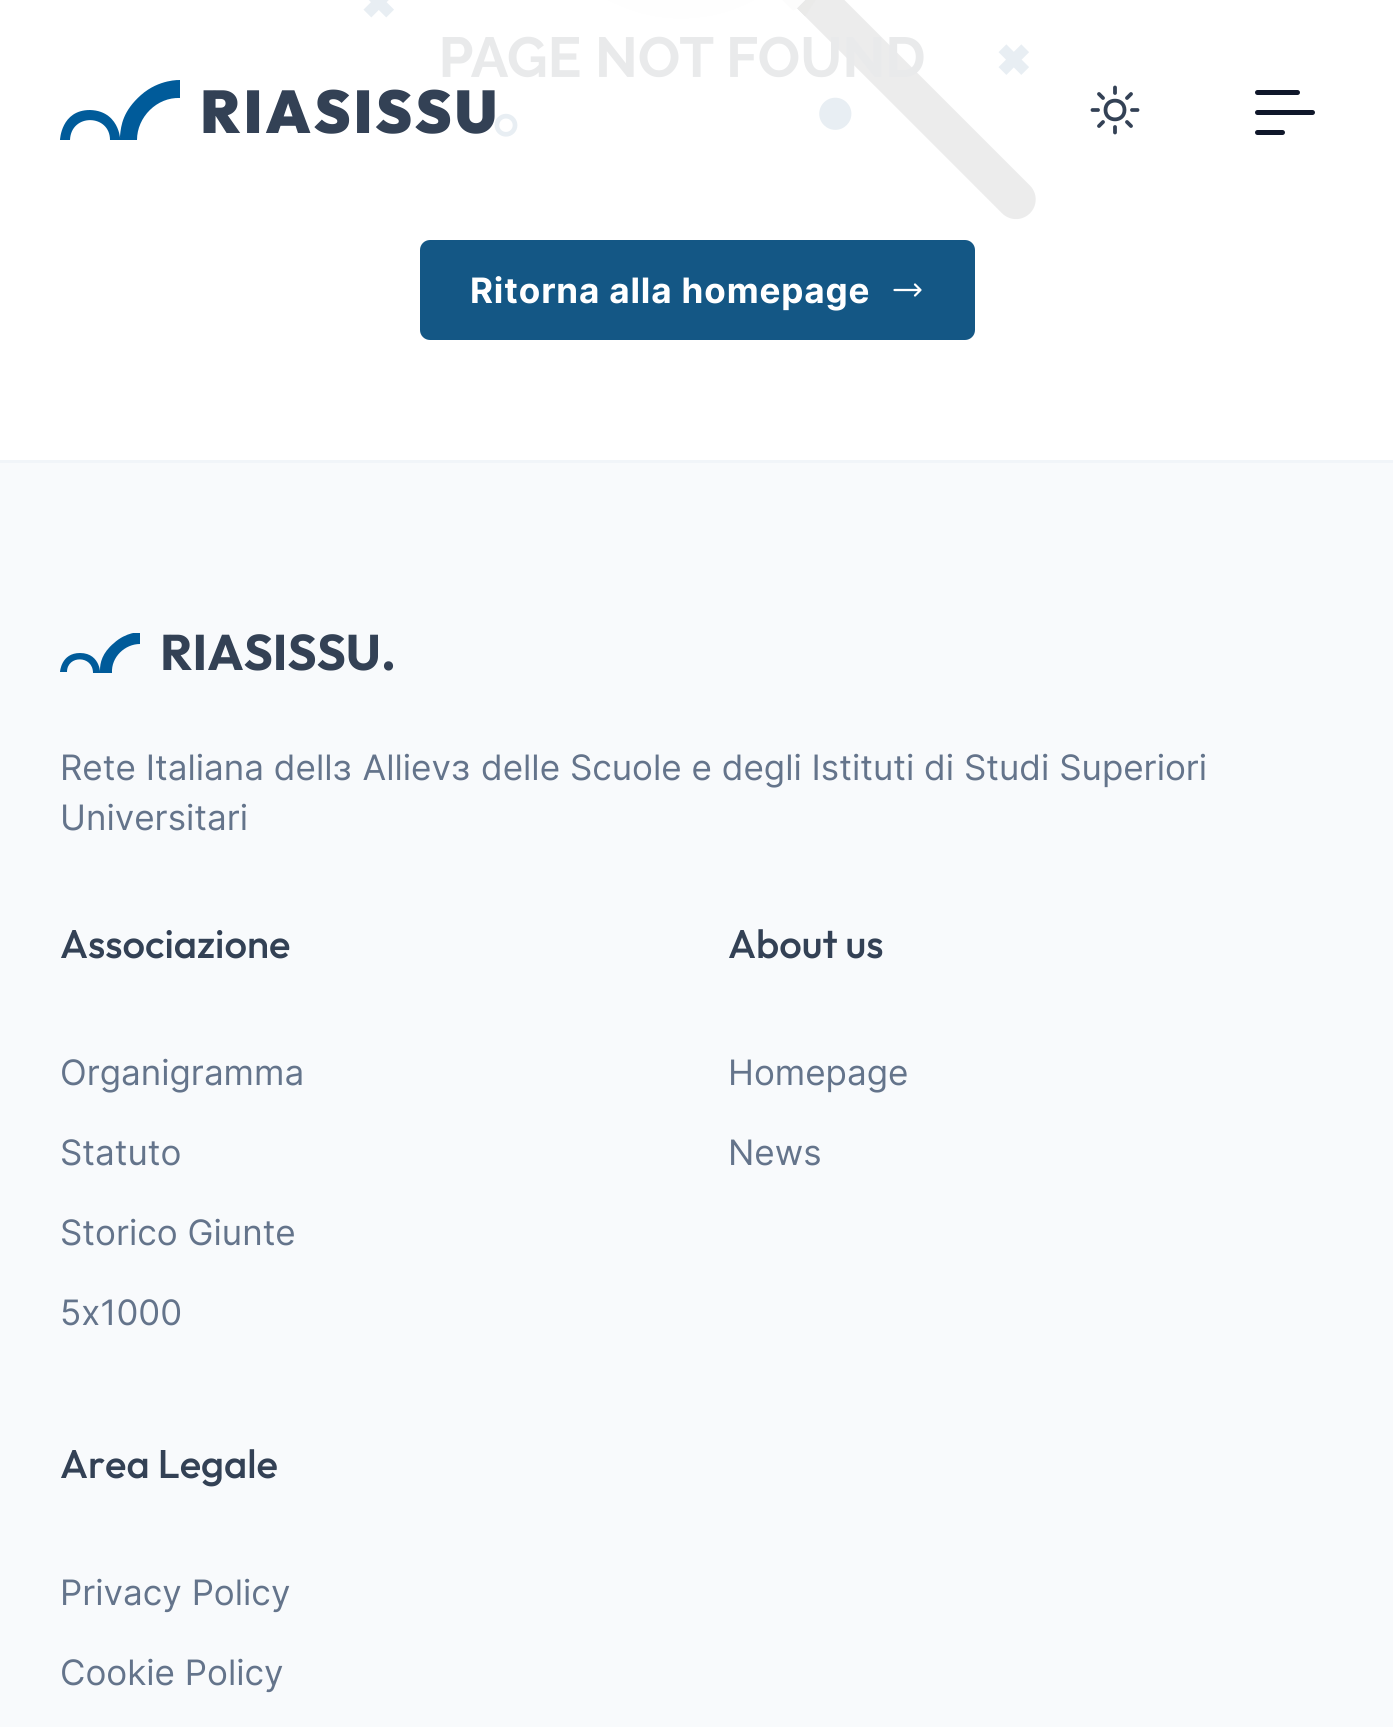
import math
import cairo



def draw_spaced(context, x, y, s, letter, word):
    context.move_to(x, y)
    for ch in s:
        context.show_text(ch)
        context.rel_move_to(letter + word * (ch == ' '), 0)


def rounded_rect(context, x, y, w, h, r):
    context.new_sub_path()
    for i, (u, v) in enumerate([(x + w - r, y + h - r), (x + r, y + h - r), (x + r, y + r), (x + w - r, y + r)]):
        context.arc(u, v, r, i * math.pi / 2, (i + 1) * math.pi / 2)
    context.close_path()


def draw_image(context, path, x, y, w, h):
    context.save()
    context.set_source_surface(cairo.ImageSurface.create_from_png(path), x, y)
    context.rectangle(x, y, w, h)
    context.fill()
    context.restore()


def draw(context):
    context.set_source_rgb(1, 1, 1)
    context.paint()
    context.set_source_rgb(0, 91 / 255, 154 / 255)
    context.new_path()
    context.move_to(60, 140)
    context.line_to(70, 140)
    context.curve_to(71, 113, 110, 114, 110, 140)
    context.line_to(137, 140)
    context.curve_to(137, 117, 157, 97, 180, 98)
    context.line_to(180, 80)
    context.curve_to(180, 80, 159, 79, 141, 95)
    context.curve_to(123, 111, 121, 125, 120, 136)
    context.curve_to(120, 148, 123, 111, 90, 110)
    context.curve_to(61, 110, 60, 140, 60, 140)
    context.close_path()
    context.fill()
    context.new_path()
    context.move_to(1115, 87.5)
    context.line_to(1115, 93)
    context.move_to(1131, 94)
    context.line_to(1127, 98)
    context.move_to(1137.5, 110)
    context.line_to(1132, 110)
    context.move_to(1131, 126)
    context.line_to(1127, 122)
    context.move_to(1115, 127)
    context.line_to(1115, 132.5)
    context.move_to(1103, 122)
    context.line_to(1099, 126)
    context.move_to(1098, 110)
    context.line_to(1092.5, 110)
    context.move_to(1103, 98)
    context.line_to(1099, 94)
    context.move_to(1124.5, 110)
    context.curve_to(1124.5, 122.5, 1105.5, 122.5, 1105.5, 110)
    context.curve_to(1105.5, 97.5, 1124.5, 97.5, 1124.5, 110)
    context.close_path()
    context.set_source_rgb(51 / 255, 65 / 255, 85 / 255)
    context.set_line_width(3.8)
    context.set_line_cap(cairo.LineCap.ROUND)
    context.set_line_join(cairo.LineJoin.ROUND)
    context.stroke()
    context.set_source_rgb(15 / 255, 23 / 255, 42 / 255)
    rounded_rect(context, 1255, 90, 45, 5, 2.5)
    context.fill()
    rounded_rect(context, 1255, 110, 60, 5, 2.5)
    context.fill()
    rounded_rect(context, 1255, 130, 30, 5, 2.5)
    context.fill()
    draw_image(context, "images/1.png", 363, 0, 673, 220)
    context.set_source_rgb(20 / 255, 87 / 255, 133 / 255)
    rounded_rect(context, 420, 240, 555, 100, 10)
    context.fill()
    context.new_path()
    context.move_to(915, 284.5)
    context.line_to(920.5, 290)
    context.move_to(920.5, 290)
    context.line_to(915, 295.5)
    context.move_to(920.5, 290)
    context.line_to(894.5, 290)
    context.set_source_rgb(1, 1, 1)
    context.set_line_width(2.2)
    context.stroke()
    context.set_source_rgb(248 / 255, 250 / 255, 252 / 255)
    context.rectangle(0, 463, 1393, 1264)
    context.fill()
    context.set_source_rgb(241 / 255, 245 / 255, 249 / 255)
    context.rectangle(0, 460, 1393, 3)
    context.fill()
    context.save()
    context.rectangle(60, 633, 80, 40)
    context.clip()
    context.set_source_rgb(0, 91 / 255, 154 / 255)
    context.new_path()
    context.move_to(60, 672)
    context.line_to(67, 672)
    context.curve_to(67, 655, 93, 655, 93, 673)
    context.line_to(112, 673)
    context.curve_to(111, 657, 125, 644, 140, 644)
    context.line_to(140, 632)
    context.curve_to(140, 632, 126, 632, 114, 643)
    context.curve_to(102, 653, 100, 663, 100, 670)
    context.curve_to(100, 678, 102, 653, 80, 653)
    context.curve_to(61, 653, 60, 672, 60, 672)
    context.close_path()
    context.fill()
    context.restore()
    context.select_font_face("Outfit Black")
    context.set_font_size(60)
    context.set_source_rgb(51 / 255, 65 / 255, 85 / 255)
    draw_spaced(context, 200, 133, "RIASISSU", 3, 0)
    context.select_font_face("Inter", cairo.FontSlant.NORMAL, cairo.FontWeight.BOLD)
    context.set_font_size(35)
    context.set_source_rgb(1, 1, 1)
    draw_spaced(context, 470, 303, "Ritorna alla homepage", 0.9, 0)
    context.select_font_face("Outfit", cairo.FontSlant.NORMAL, cairo.FontWeight.BOLD)
    context.set_font_size(50)
    context.set_source_rgb(51 / 255, 65 / 255, 85 / 255)
    context.move_to(160, 670)
    context.show_text("RIASISSU.")
    context.select_font_face("Inter")
    context.set_font_size(35)
    context.set_source_rgb(100 / 255, 116 / 255, 139 / 255)
    context.move_to(60, 780)
    context.show_text("Rete Italiana dellɜ Allievɜ delle Scuole e degli Istituti di Studi Superiori")
    context.move_to(60, 830)
    context.show_text("Universitari")
    context.select_font_face("Outfit Medium")
    context.set_font_size(40)
    context.set_source_rgb(51 / 255, 65 / 255, 85 / 255)
    context.move_to(60, 958)
    context.show_text("Associazione")
    context.select_font_face("Inter")
    context.set_font_size(35)
    context.set_source_rgb(100 / 255, 116 / 255, 139 / 255)
    context.move_to(60, 1085)
    context.show_text("Organigramma")
    context.move_to(60, 1165)
    context.show_text("Statuto")
    context.move_to(60, 1245)
    context.show_text("Storico Giunte")
    context.move_to(60, 1325)
    context.show_text("5x1000")
    context.select_font_face("Outfit Medium")
    context.set_font_size(40)
    context.set_source_rgb(51 / 255, 65 / 255, 85 / 255)
    context.move_to(728, 958)
    context.show_text("About us")
    context.select_font_face("Inter")
    context.set_font_size(35)
    context.set_source_rgb(100 / 255, 116 / 255, 139 / 255)
    context.move_to(728, 1085)
    context.show_text("Homepage")
    context.move_to(728, 1165)
    context.show_text("News")
    context.select_font_face("Outfit Medium")
    context.set_font_size(40)
    context.set_source_rgb(51 / 255, 65 / 255, 85 / 255)
    context.move_to(60, 1478)
    context.show_text("Area Legale")
    context.select_font_face("Inter")
    context.set_font_size(35)
    context.set_source_rgb(100 / 255, 116 / 255, 139 / 255)
    context.move_to(60, 1605)
    context.show_text("Privacy Policy")
    context.move_to(60, 1685)
    context.show_text("Cookie Policy")


surface = cairo.ImageSurface(cairo.Format.RGB24, 1393, 1727)
context = cairo.Context(surface)
options = cairo.FontOptions()
options.set_hint_metrics(cairo.HintMetrics.OFF)
options.set_hint_style(cairo.HintStyle.NONE)
context.set_font_options(options)
context.set_miter_limit(4)
draw(context)
surface.write_to_png("out.png")
